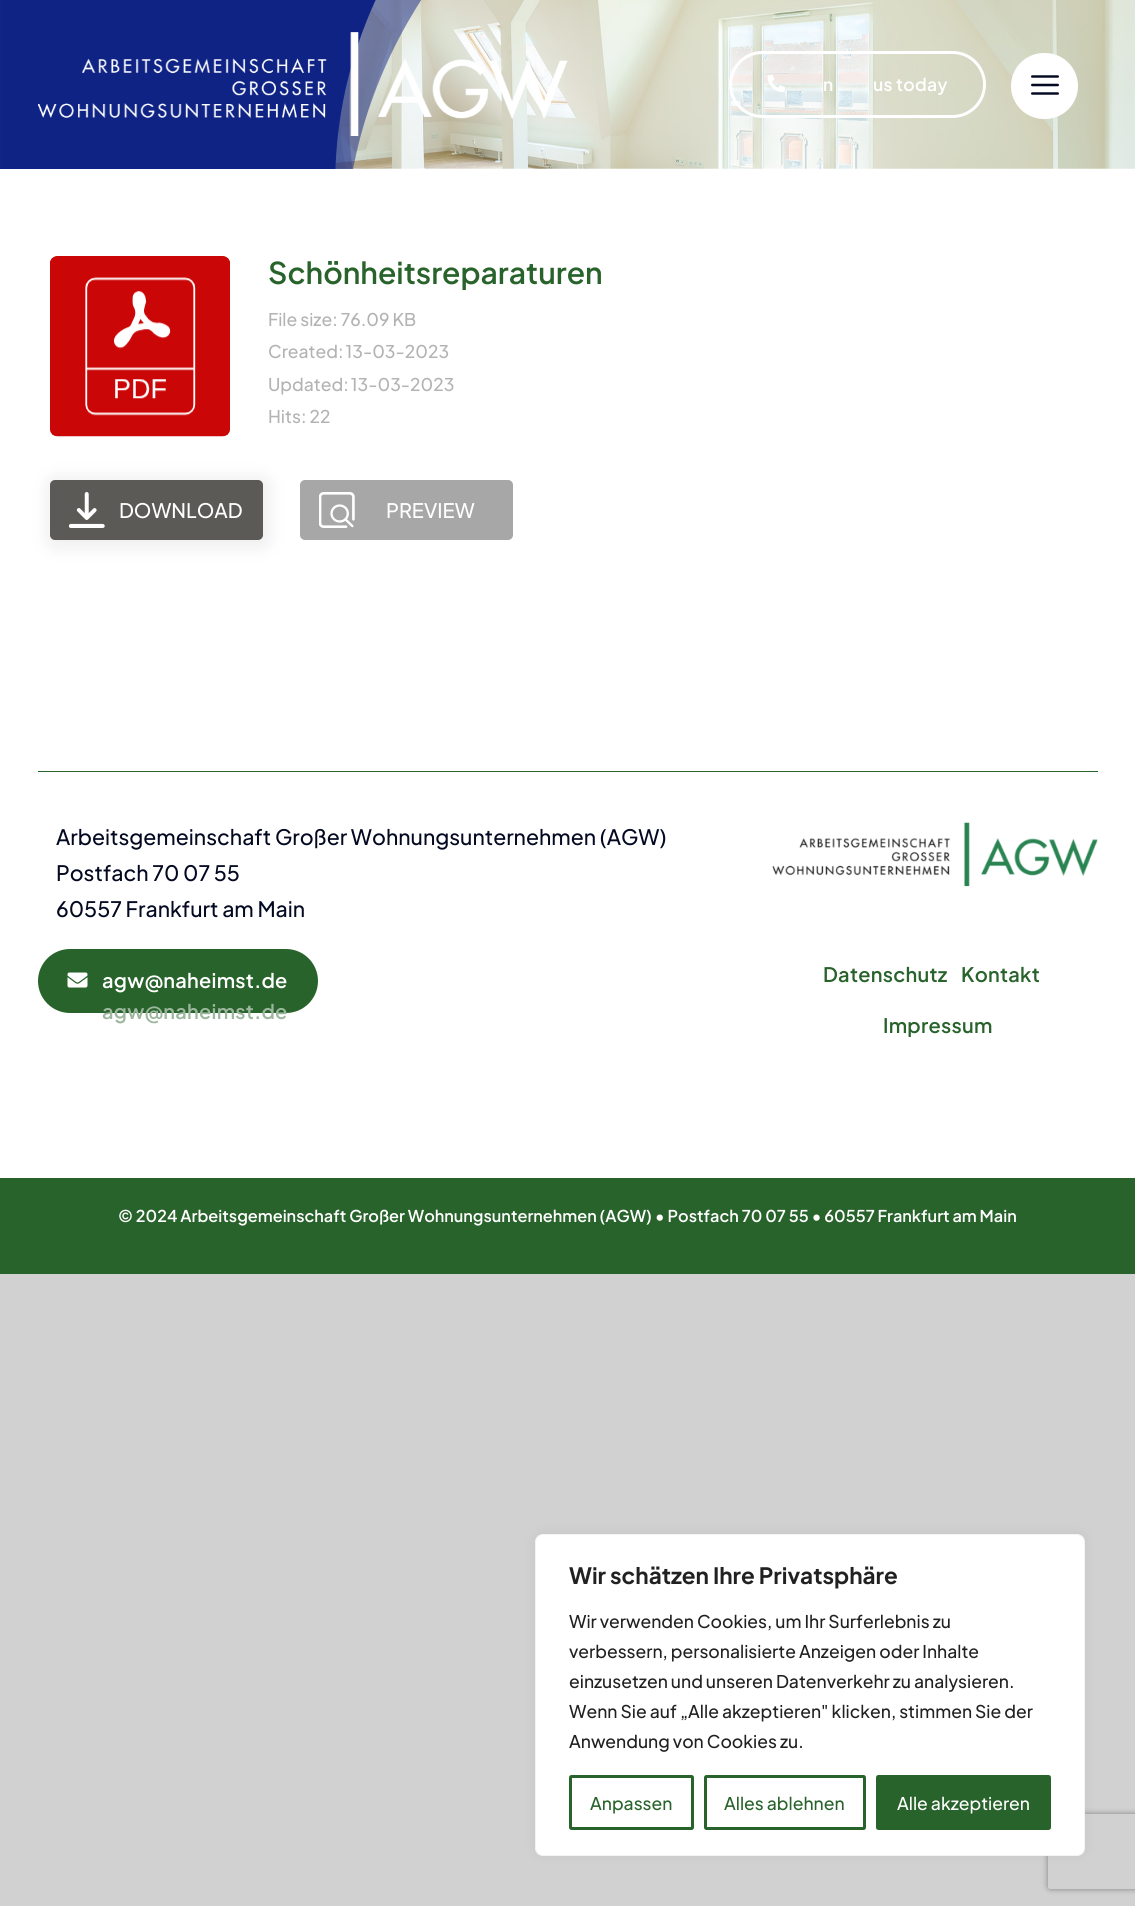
import math
import cairo



def draw_spaced(context, x, y, s, letter, word):
    context.move_to(x, y)
    for ch in s:
        context.show_text(ch)
        context.rel_move_to(letter + word * (ch == ' '), 0)


def rounded_rect(context, x, y, w, h, r):
    context.new_sub_path()
    for i, (u, v) in enumerate([(x + w - r, y + h - r), (x + r, y + h - r), (x + r, y + r), (x + w - r, y + r)]):
        context.arc(u, v, r, i * math.pi / 2, (i + 1) * math.pi / 2)
    context.close_path()


def draw_shadow(context, x, y, w, h, r, blur, alpha):
    context.push_group_with_content(cairo.Content.ALPHA)
    context.set_operator(cairo.Operator.SOURCE)
    for i in range(15, -16, -2):
        e = blur * i / 6
        if min(w, h) + 2 * e > 0:
            context.set_source_rgba(0, 0, 0, alpha * math.erfc((i - 1) / 8.5) / 2)
            rounded_rect(context, x - e, y - e, w + 2 * e, h + 2 * e, max(0, min(r + e + blur * .6, min(w, h) / 2 + e)))
            context.fill()
    context.mask(context.pop_group())


def draw_image(context, path, x, y, w, h):
    context.save()
    context.set_source_surface(cairo.ImageSurface.create_from_png(path), x, y)
    context.rectangle(x, y, w, h)
    context.fill()
    context.restore()


def draw(context):
    context.set_source_rgb(209 / 255, 209 / 255, 209 / 255)
    context.paint()
    context.set_source_rgb(1, 1, 1)
    context.rectangle(0, 168, 1135, 1010)
    context.fill()
    draw_image(context, "images/1.png", 0, 0, 1135, 169)
    draw_image(context, "images/2.png", 0, 0, 422, 169)
    draw_image(context, "images/3.png", 38, 32, 530, 104)
    rounded_rect(context, 730.5, 52.5, 254, 64, 32)
    context.set_line_width(3)
    context.stroke()
    draw_image(context, "images/4.png", 767, 74, 18, 18)
    rounded_rect(context, 1011, 53, 67, 66, 33)
    context.fill()
    draw_image(context, "images/5.png", 1031, 75, 28, 20)
    context.set_source_rgb(203 / 255, 6 / 255, 6 / 255)
    rounded_rect(context, 50, 256, 180, 180, 8)
    context.fill()
    draw_image(context, "images/6.png", 50, 256, 181, 181)
    context.set_source_rgb(240 / 255, 240 / 255, 240 / 255)
    draw_shadow(context, 46, 476, 225, 73, 11, 7.5, 1)
    context.set_source_rgb(92 / 255, 90 / 255, 87 / 255)
    rounded_rect(context, 50, 480, 213, 60, 5)
    context.fill()
    draw_image(context, "images/7.png", 69, 492, 36, 36)
    context.set_source_rgb(167 / 255, 167 / 255, 167 / 255)
    rounded_rect(context, 300, 480, 213, 60, 5)
    context.fill()
    draw_image(context, "images/8.png", 319, 492, 36, 36)
    context.set_source_rgb(41 / 255, 99 / 255, 44 / 255)
    context.rectangle(38, 771, 1060, 1)
    context.fill()
    rounded_rect(context, 38, 949, 280, 64, 32)
    context.fill()
    draw_image(context, "images/9.png", 67, 972, 21, 16)
    draw_image(context, "images/10.png", 772, 822, 326, 65)
    context.rectangle(0, 1178, 1135, 96)
    context.fill()
    context.set_source_rgb(172 / 255, 171 / 255, 171 / 255)
    draw_shadow(context, 535, 1533, 550, 322, 8, 6, 0.3)
    context.save()
    context.set_fill_rule(cairo.FillRule.EVEN_ODD)
    context.new_path()
    context.move_to(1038, 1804)
    context.line_to(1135, 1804)
    context.line_to(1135, 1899)
    context.line_to(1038, 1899)
    context.close_path()
    context.move_to(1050.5, 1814)
    context.line_to(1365.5, 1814)
    context.curve_to(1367, 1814, 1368, 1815, 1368, 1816.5)
    context.line_to(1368, 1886.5)
    context.curve_to(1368, 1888, 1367, 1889, 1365.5, 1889)
    context.line_to(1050.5, 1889)
    context.curve_to(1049, 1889, 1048, 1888, 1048, 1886.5)
    context.line_to(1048, 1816.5)
    context.curve_to(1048, 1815, 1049, 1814, 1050.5, 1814)
    context.close_path()
    context.clip()
    context.set_source_rgb(128 / 255, 128 / 255, 128 / 255)
    draw_shadow(context, 1048, 1814, 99, 75, 2.5, 3, 1)
    context.restore()
    context.set_source_rgb(1, 1, 1)
    rounded_rect(context, 535.5, 1534.5, 549, 321, 7.5)
    context.fill_preserve()
    context.set_source_rgb(244 / 255, 244 / 255, 244 / 255)
    context.set_line_width(1)
    context.stroke()
    rounded_rect(context, 570.5, 1776.5, 122, 52, 1)
    context.set_source_rgb(41 / 255, 99 / 255, 44 / 255)
    context.set_line_width(3)
    context.stroke()
    rounded_rect(context, 705.5, 1776.5, 159, 52, 1)
    context.stroke()
    rounded_rect(context, 877.5, 1776.5, 172, 52, 1)
    context.fill_preserve()
    context.stroke()
    context.select_font_face("Plus Jakarta Sans SemiBold")
    context.set_font_size(17.5)
    context.set_source_rgb(1, 1, 1)
    draw_spaced(context, 823, 91, "n", 0.25, 0)
    draw_spaced(context, 873, 91, "us today", 0.25, 0)
    context.set_font_size(30)
    context.set_source_rgb(41 / 255, 99 / 255, 44 / 255)
    context.move_to(268, 284)
    context.show_text("Schönheitsreparaturen")
    context.select_font_face("Plus Jakarta Sans Medium")
    context.set_font_size(17.5)
    context.set_source_rgb(179 / 255, 179 / 255, 179 / 255)
    context.move_to(268, 326)
    context.show_text("File size: 76.09 KB")
    draw_spaced(context, 268, 358, "Created: 13-03-2023", 0, -1)
    draw_spaced(context, 268, 391, "Updated: 13-03-2023", 0, -1)
    context.move_to(268, 423)
    context.show_text("Hits: 22")
    context.set_font_size(20)
    context.set_source_rgb(1, 1, 1)
    context.move_to(119, 518)
    context.show_text("DOWNLOAD")
    context.move_to(386, 518)
    context.show_text("PREVIEW")
    context.set_font_size(21.25)
    context.set_source_rgb(4 / 255, 9 / 255, 34 / 255)
    context.move_to(56, 845)
    context.show_text("Arbeitsgemeinschaft Großer Wohnungsunternehmen (AGW)")
    context.move_to(56, 881)
    context.show_text("Postfach 70 07 55")
    context.move_to(56, 917)
    context.show_text("60557 Frankfurt am Main")
    context.select_font_face("Plus Jakarta Sans SemiBold")
    context.set_font_size(20)
    context.set_source_rgb(1, 1, 1)
    draw_spaced(context, 102, 988, "agw@naheimst.de", 0.25, 0)
    context.set_source_rgb(156 / 255, 183 / 255, 157 / 255)
    draw_spaced(context, 102, 1019, "agw@naheimst.de", 0.25, 0)
    context.set_source_rgb(41 / 255, 99 / 255, 44 / 255)
    draw_spaced(context, 823, 982, "Datenschutz", 0.25, 0)
    draw_spaced(context, 961, 982, "Kontakt", 0.25, 0)
    draw_spaced(context, 883, 1033, "Impressum", 0.25, 0)
    context.set_font_size(16.25)
    context.set_source_rgb(1, 1, 1)
    context.move_to(118, 1222)
    context.show_text("© 2024 Arbeitsgemeinschaft Großer Wohnungsunternehmen (AGW) • Postfach 70 07 55 • 60557 Frankfurt am Main")
    context.select_font_face("Plus Jakarta Sans", cairo.FontSlant.NORMAL, cairo.FontWeight.BOLD)
    context.set_font_size(22.5)
    context.set_source_rgb(33 / 255, 33 / 255, 33 / 255)
    context.move_to(569, 1584)
    context.show_text("Wir schätzen Ihre Privatsphäre")
    context.select_font_face("Plus Jakarta Sans Medium")
    context.set_font_size(17.5)
    context.move_to(569, 1628)
    context.show_text("Wir verwenden Cookies, um Ihr Surferlebnis zu")
    context.move_to(569, 1658)
    context.show_text("verbessern, personalisierte Anzeigen oder Inhalte")
    context.move_to(569, 1688)
    context.show_text("einzusetzen und unseren Datenverkehr zu analysieren.")
    context.move_to(569, 1718)
    context.show_text("Wenn Sie auf „Alle akzeptieren\" klicken, stimmen Sie der")
    context.move_to(569, 1748)
    context.show_text("Anwendung von Cookies zu.")
    context.set_source_rgb(41 / 255, 99 / 255, 44 / 255)
    context.move_to(590, 1810)
    context.show_text("Anpassen")
    context.move_to(724, 1810)
    context.show_text("Alles ablehnen")
    context.set_source_rgb(1, 1, 1)
    context.move_to(897, 1810)
    context.show_text("Alle akzeptieren")


surface = cairo.ImageSurface(cairo.Format.RGB24, 1135, 1906)
context = cairo.Context(surface)
options = cairo.FontOptions()
options.set_hint_metrics(cairo.HintMetrics.OFF)
options.set_hint_style(cairo.HintStyle.NONE)
context.set_font_options(options)
context.set_miter_limit(4)
draw(context)
surface.write_to_png("out.png")
